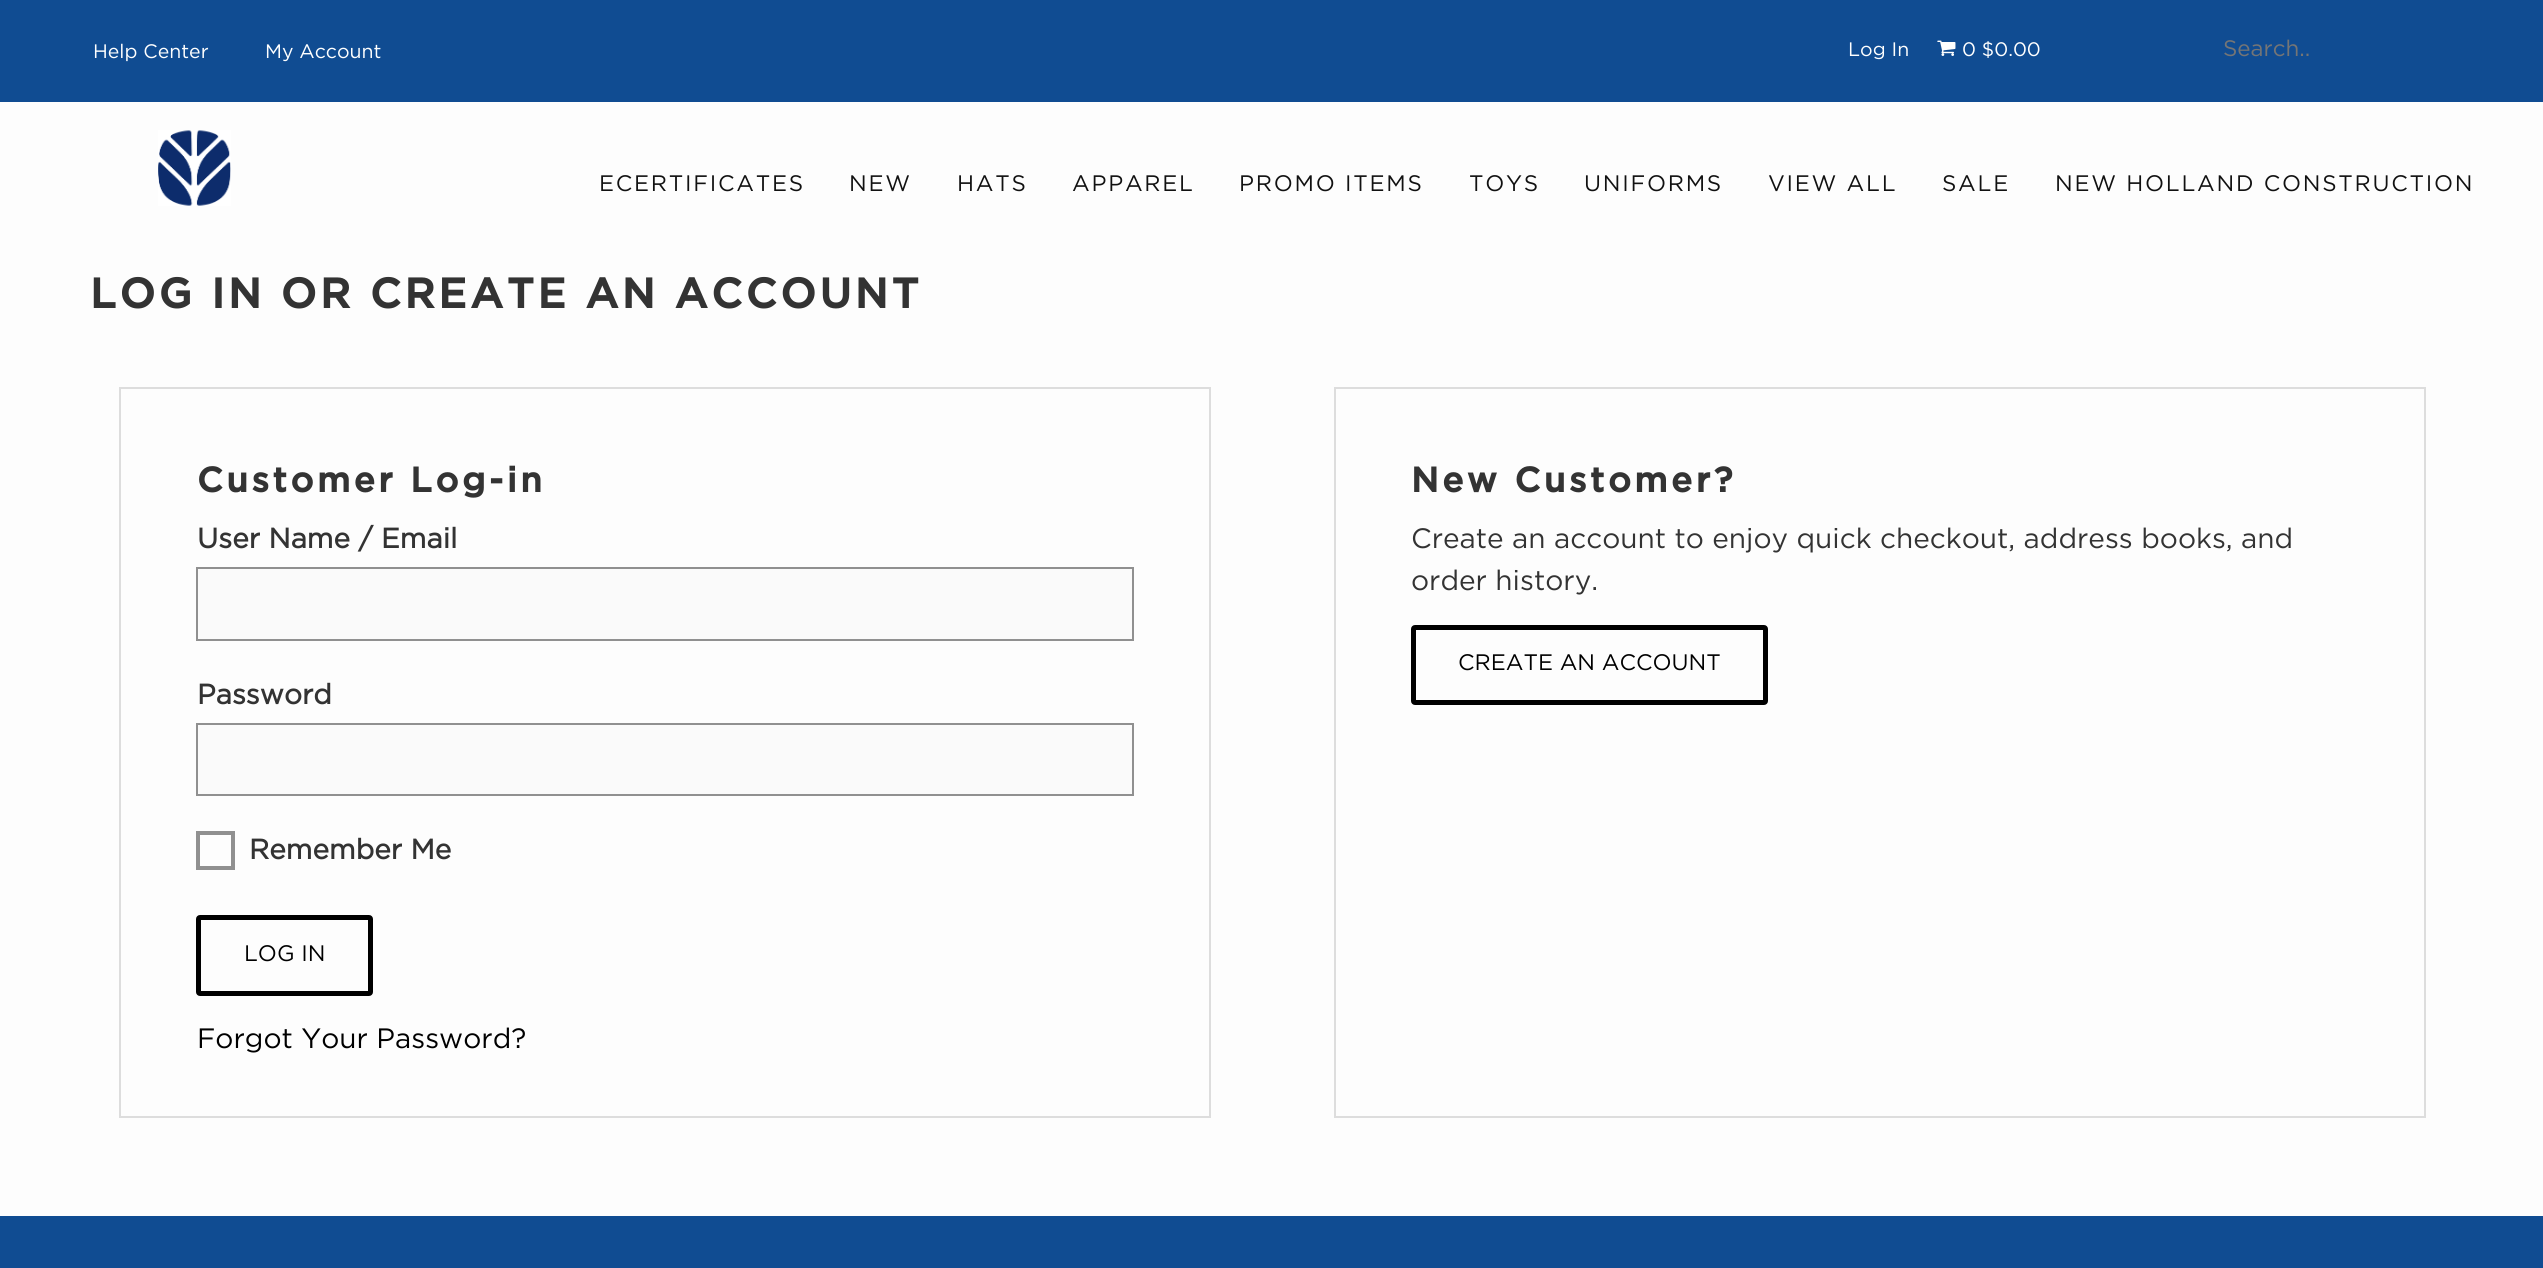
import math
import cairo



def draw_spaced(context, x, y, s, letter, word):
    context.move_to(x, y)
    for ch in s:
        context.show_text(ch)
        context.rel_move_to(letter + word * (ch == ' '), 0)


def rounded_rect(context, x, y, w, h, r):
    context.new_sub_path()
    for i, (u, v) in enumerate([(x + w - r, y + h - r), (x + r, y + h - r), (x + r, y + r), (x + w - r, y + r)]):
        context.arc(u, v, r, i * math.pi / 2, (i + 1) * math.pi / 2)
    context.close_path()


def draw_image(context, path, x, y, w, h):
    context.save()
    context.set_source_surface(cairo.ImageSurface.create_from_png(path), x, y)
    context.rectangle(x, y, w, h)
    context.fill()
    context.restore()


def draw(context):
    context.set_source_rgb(253 / 255, 253 / 255, 253 / 255)
    context.paint()
    context.set_source_rgb(16 / 255, 76 / 255, 146 / 255)
    context.rectangle(0, 0, 2543, 102)
    context.fill()
    draw_image(context, "images/1.png", 1937, 40, 19, 16)
    draw_image(context, "images/2.png", 158, 130, 73, 76)
    context.rectangle(120, 388, 1090, 729)
    context.set_source_rgb(221 / 255, 221 / 255, 221 / 255)
    context.stroke()
    context.set_source_rgb(250 / 255, 250 / 255, 250 / 255)
    context.rectangle(197, 568, 936, 72)
    context.fill_preserve()
    context.set_source_rgb(144 / 255, 144 / 255, 144 / 255)
    context.stroke()
    context.set_source_rgb(250 / 255, 250 / 255, 250 / 255)
    context.rectangle(197, 724, 936, 71)
    context.fill_preserve()
    context.set_source_rgb(144 / 255, 144 / 255, 144 / 255)
    context.stroke()
    context.rectangle(198, 833, 35, 35)
    context.set_line_width(4)
    context.stroke()
    rounded_rect(context, 198.5, 917.5, 172, 76, 1.5)
    context.set_source_rgb(0, 0, 0)
    context.set_line_width(5)
    context.stroke()
    context.rectangle(1335, 388, 1090, 729)
    context.set_source_rgb(221 / 255, 221 / 255, 221 / 255)
    context.set_line_width(2)
    context.stroke()
    rounded_rect(context, 1413.5, 627.5, 352, 75, 1.5)
    context.set_source_rgb(0, 0, 0)
    context.set_line_width(5)
    context.stroke()
    context.set_source_rgb(16 / 255, 76 / 255, 146 / 255)
    context.rectangle(0, 1216, 2543, 52)
    context.fill()
    context.select_font_face("Gotham")
    context.set_font_size(19.5)
    context.set_source_rgb(1, 1, 1)
    context.move_to(93, 58)
    context.show_text("Help Center")
    context.move_to(265, 58)
    context.show_text("My Account")
    context.move_to(1848, 56)
    context.show_text("Log In")
    context.move_to(1962, 56)
    context.show_text("0 $0.00")
    context.set_font_size(22.4)
    context.set_source_rgb(117 / 255, 117 / 255, 117 / 255)
    context.move_to(2223, 56)
    context.show_text("Search..")
    context.set_source_rgb(17 / 255, 17 / 255, 17 / 255)
    draw_spaced(context, 599, 191, "ECERTIFICATES", 1.75, 0)
    draw_spaced(context, 849, 191, "NEW", 1.75, 0)
    draw_spaced(context, 957, 191, "HATS", 1.75, 0)
    draw_spaced(context, 1072, 191, "APPAREL", 1.75, 0)
    draw_spaced(context, 1239, 191, "PROMO ITEMS", 1.75, 0)
    draw_spaced(context, 1469, 191, "TOYS", 1.75, 0)
    draw_spaced(context, 1584, 191, "UNIFORMS", 1.75, 0)
    draw_spaced(context, 1768, 191, "VIEW ALL", 1.75, 0)
    draw_spaced(context, 1942, 191, "SALE", 1.75, 0)
    draw_spaced(context, 2055, 191, "NEW HOLLAND CONSTRUCTION", 1.75, 0)
    context.select_font_face("Gotham", cairo.FontSlant.NORMAL, cairo.FontWeight.BOLD)
    context.set_font_size(42)
    context.set_source_rgb(51 / 255, 51 / 255, 51 / 255)
    draw_spaced(context, 90, 308, "LOG IN OR CREATE AN ACCOUNT", 3.5, 0)
    context.set_font_size(35)
    draw_spaced(context, 197, 492, "Customer Log-in", 3.5, 0)
    context.select_font_face("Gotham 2", cairo.FontSlant.NORMAL, cairo.FontWeight.BOLD)
    context.set_font_size(28)
    context.move_to(197, 548)
    context.show_text("User Name / Email")
    context.move_to(197, 704)
    context.show_text("Password")
    context.move_to(249, 859)
    context.show_text("Remember Me")
    context.select_font_face("Gotham")
    context.set_font_size(22.4)
    context.set_source_rgb(0, 0, 0)
    context.move_to(244, 961)
    context.show_text("LOG IN")
    context.set_font_size(28)
    context.move_to(197, 1048)
    context.show_text("Forgot Your Password?")
    context.select_font_face("Gotham", cairo.FontSlant.NORMAL, cairo.FontWeight.BOLD)
    context.set_font_size(35)
    context.set_source_rgb(51 / 255, 51 / 255, 51 / 255)
    draw_spaced(context, 1411, 492, "New Customer?", 3.5, 0)
    context.select_font_face("Gotham")
    context.set_font_size(28)
    context.move_to(1411, 548)
    context.show_text("Create an account to enjoy quick checkout, address books, and")
    context.move_to(1411, 590)
    context.show_text("order history.")
    context.set_font_size(22.4)
    context.set_source_rgb(0, 0, 0)
    context.move_to(1458, 670)
    context.show_text("CREATE AN ACCOUNT")


surface = cairo.ImageSurface(cairo.Format.RGB24, 2543, 1268)
context = cairo.Context(surface)
options = cairo.FontOptions()
options.set_hint_metrics(cairo.HintMetrics.OFF)
options.set_hint_style(cairo.HintStyle.NONE)
context.set_font_options(options)
context.set_miter_limit(4)
draw(context)
surface.write_to_png("out.png")
